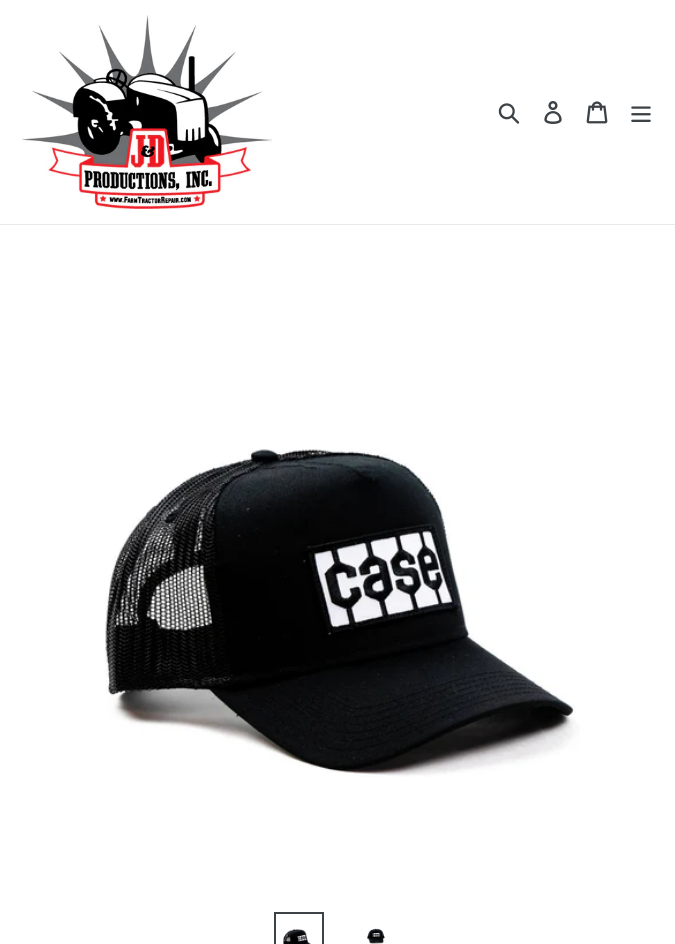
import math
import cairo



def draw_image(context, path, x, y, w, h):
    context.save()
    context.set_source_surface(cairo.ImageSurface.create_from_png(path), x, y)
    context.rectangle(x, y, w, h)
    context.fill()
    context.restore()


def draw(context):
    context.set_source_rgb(1, 1, 1)
    context.paint()
    context.set_source_rgb(232 / 255, 233 / 255, 235 / 255)
    context.rectangle(0, 224, 675, 1)
    context.fill()
    draw_image(context, "images/1.png", 22, 15, 250, 194)
    draw_image(context, "images/2.png", 498, 103, 22, 21)
    draw_image(context, "images/3.png", 544, 101, 18, 23)
    draw_image(context, "images/4.png", 586, 101, 22, 23)
    draw_image(context, "images/5.png", 631, 106, 20, 16)
    draw_image(context, "images/6.png", 105, 449, 475, 328)
    context.rectangle(275, 913, 48, 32)
    context.set_source_rgb(61 / 255, 66 / 255, 70 / 255)
    context.stroke()
    draw_image(context, "images/7.png", 283, 929, 28, 15)
    draw_image(context, "images/8.png", 367, 928, 18, 16)


surface = cairo.ImageSurface(cairo.Format.RGB24, 675, 944)
context = cairo.Context(surface)
options = cairo.FontOptions()
options.set_hint_metrics(cairo.HintMetrics.OFF)
options.set_hint_style(cairo.HintStyle.NONE)
context.set_font_options(options)
context.set_miter_limit(4)
draw(context)
surface.write_to_png("out.png")
